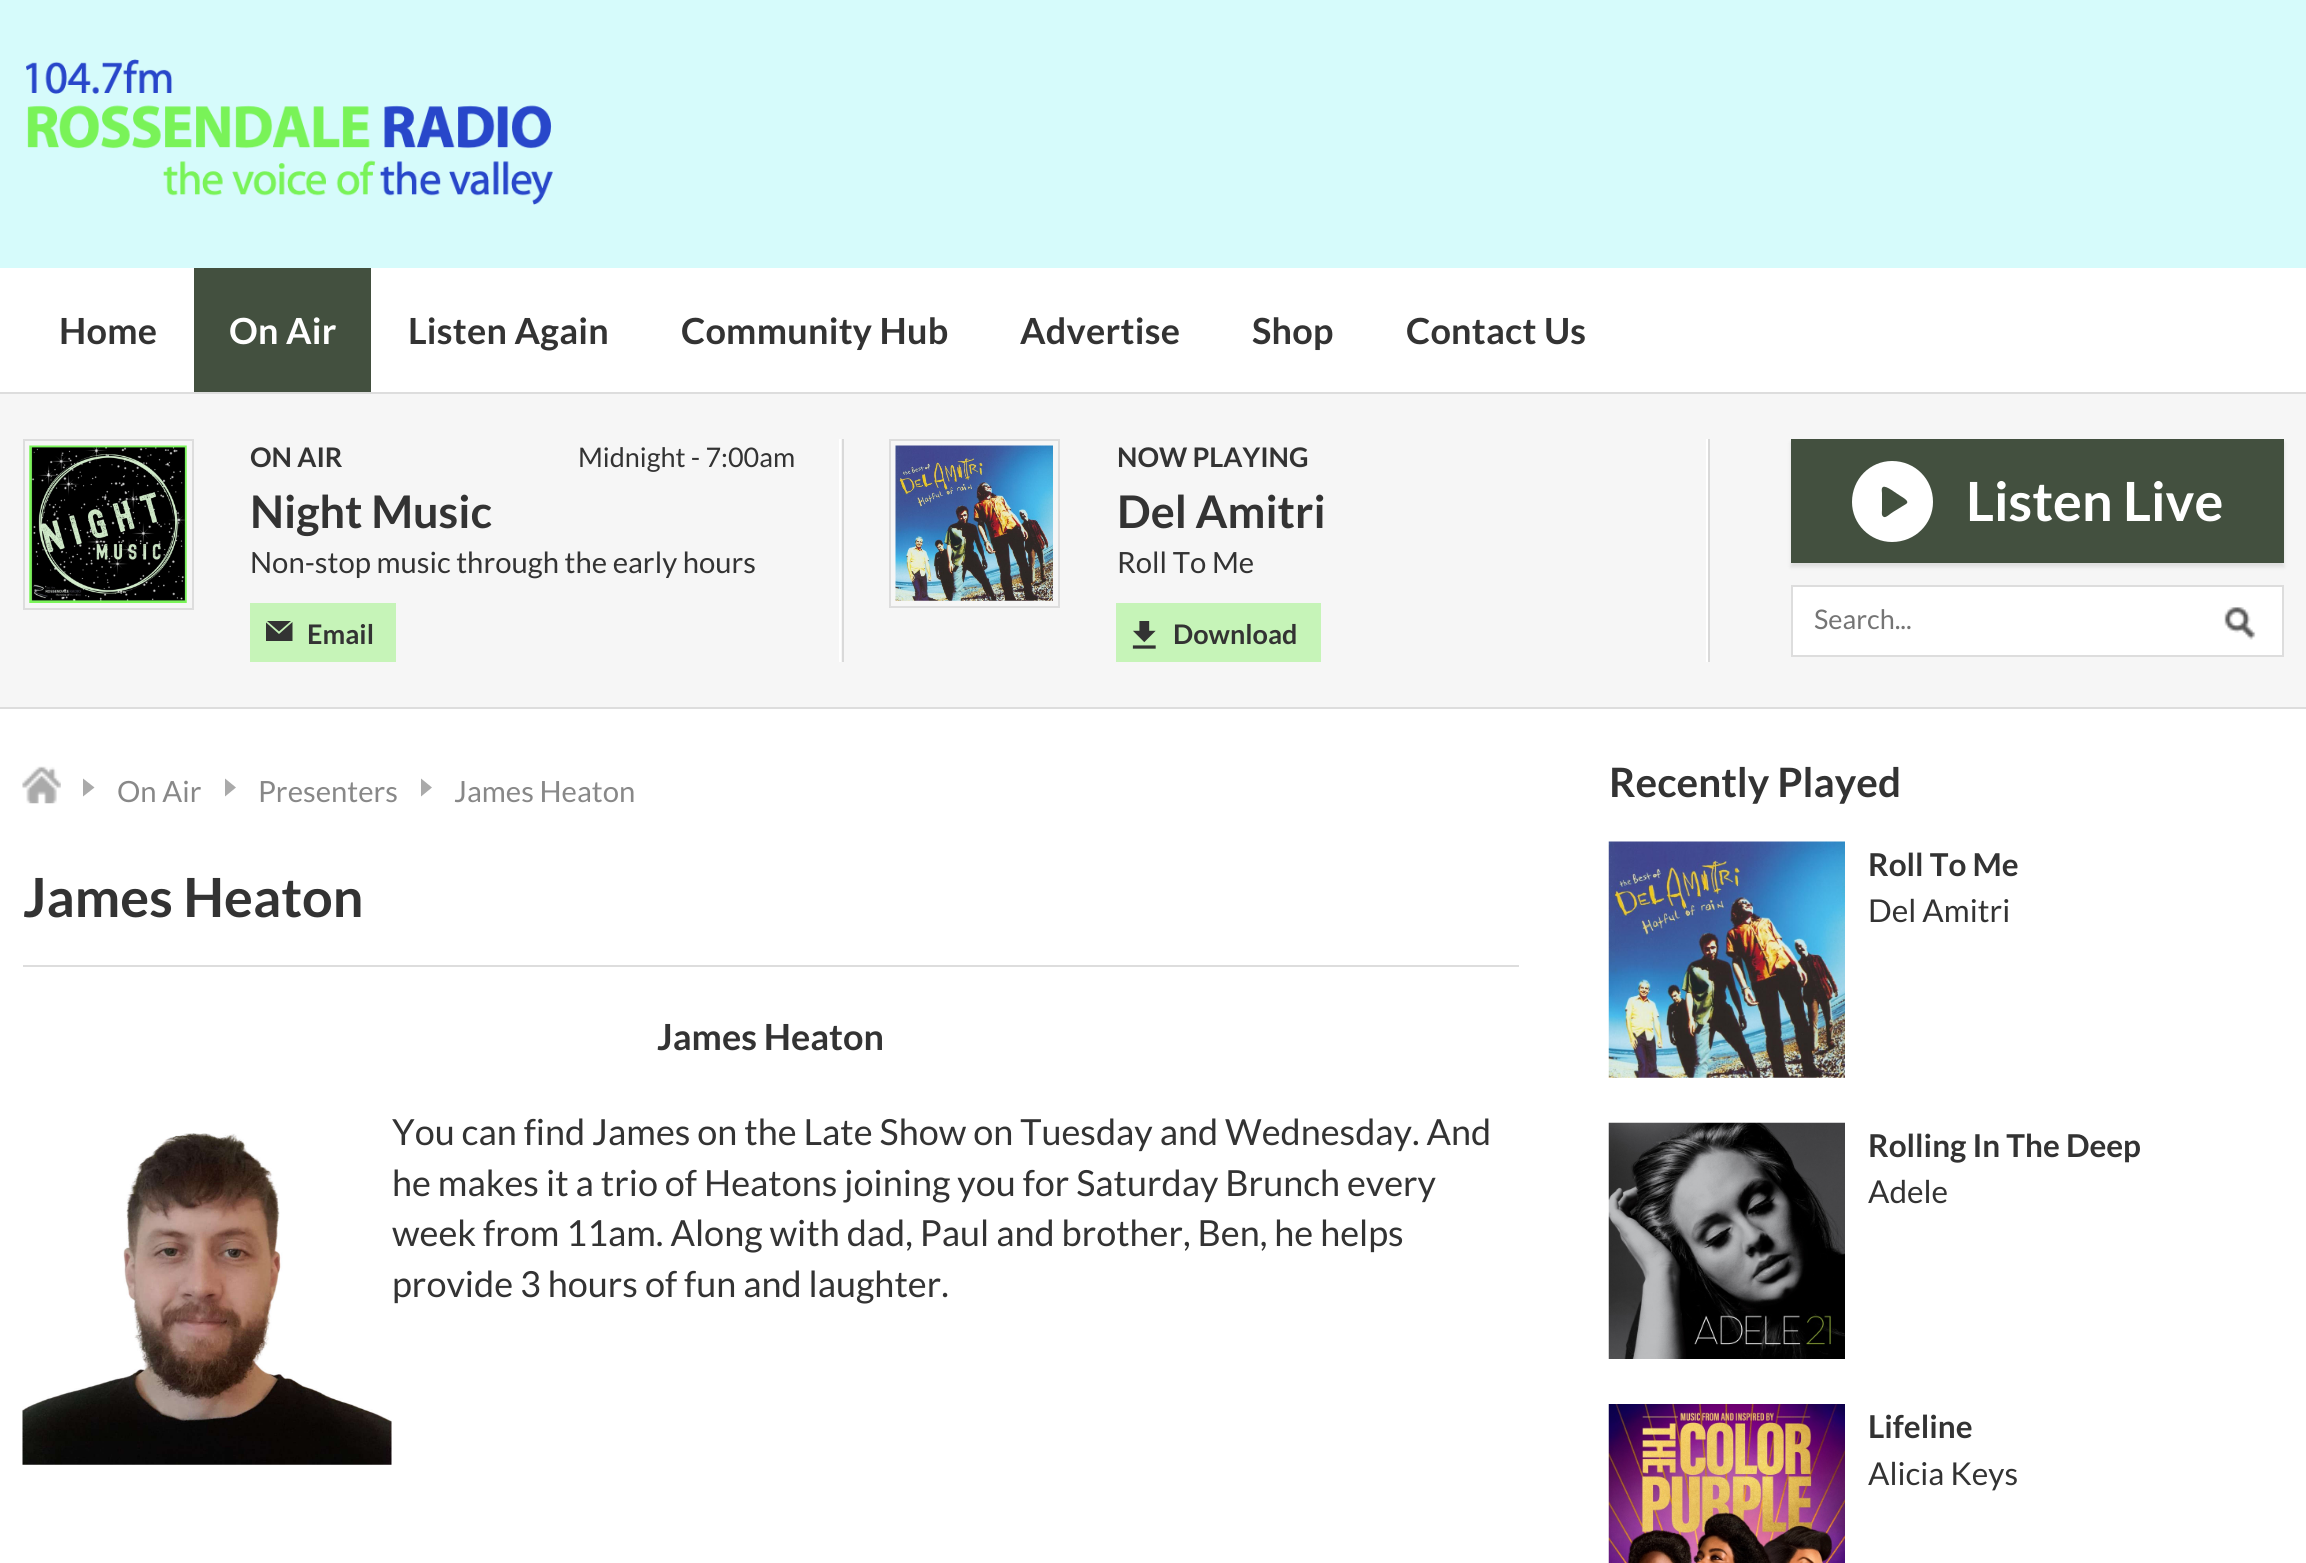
import math
import cairo



def draw_spaced(context, x, y, s, letter, word):
    context.move_to(x, y)
    for ch in s:
        context.show_text(ch)
        context.rel_move_to(letter + word * (ch == ' '), 0)


def rounded_rect(context, x, y, w, h, r):
    context.new_sub_path()
    for i, (u, v) in enumerate([(x + w - r, y + h - r), (x + r, y + h - r), (x + r, y + r), (x + w - r, y + r)]):
        context.arc(u, v, r, i * math.pi / 2, (i + 1) * math.pi / 2)
    context.close_path()


def draw_shadow(context, x, y, w, h, r, blur, alpha):
    context.push_group_with_content(cairo.Content.ALPHA)
    context.set_operator(cairo.Operator.SOURCE)
    for i in range(15, -16, -2):
        e = blur * i / 6
        if min(w, h) + 2 * e > 0:
            context.set_source_rgba(0, 0, 0, alpha * math.erfc((i - 1) / 8.5) / 2)
            rounded_rect(context, x - e, y - e, w + 2 * e, h + 2 * e, max(0, min(r + e + blur * .6, min(w, h) / 2 + e)))
            context.fill()
    context.mask(context.pop_group())


def draw_image(context, path, x, y, w, h):
    context.save()
    context.set_source_surface(cairo.ImageSurface.create_from_png(path), x, y)
    context.rectangle(x, y, w, h)
    context.fill()
    context.restore()


def draw(context):
    context.set_source_rgb(1, 1, 1)
    context.paint()
    context.set_source_rgb(214 / 255, 251 / 255, 251 / 255)
    context.rectangle(0, 0, 2306, 268)
    context.fill()
    draw_image(context, "images/1.png", 26, 59, 527, 146)
    context.set_source_rgb(67 / 255, 80 / 255, 63 / 255)
    context.rectangle(194, 268, 177, 124)
    context.fill()
    context.set_source_rgb(246 / 255, 246 / 255, 246 / 255)
    context.rectangle(0, 394, 2306, 313)
    context.fill()
    context.set_source_rgb(221 / 255, 221 / 255, 221 / 255)
    context.rectangle(0, 392, 2306, 2)
    context.fill()
    context.rectangle(0, 707, 2306, 2)
    context.fill()
    context.set_source_rgb(1, 1, 1)
    context.rectangle(839, 439, 2, 223)
    context.fill()
    context.rectangle(24, 440, 169, 169)
    context.set_source_rgb(221 / 255, 221 / 255, 221 / 255)
    context.stroke()
    draw_image(context, "images/2.png", 29, 445, 158, 158)
    context.set_source_rgb(198 / 255, 244 / 255, 184 / 255)
    context.rectangle(250, 603, 146, 59)
    context.fill()
    context.save()
    context.rectangle(266, 621, 27, 20)
    context.clip()
    context.set_source_rgb(51 / 255, 51 / 255, 51 / 255)
    context.new_path()
    context.move_to(292.5, 622)
    context.line_to(292.5, 641.5)
    context.line_to(265.5, 641.5)
    context.line_to(265.5, 622)
    context.line_to(279, 634)
    context.close_path()
    context.move_to(291, 621)
    context.line_to(267, 621)
    context.line_to(279, 631.5)
    context.close_path()
    context.fill()
    context.restore()
    context.set_source_rgb(1, 1, 1)
    context.rectangle(1706, 439, 2, 223)
    context.fill()
    context.set_source_rgb(217 / 255, 217 / 255, 217 / 255)
    context.rectangle(842, 439, 2, 223)
    context.fill()
    context.rectangle(890, 440, 169, 167)
    context.set_source_rgb(221 / 255, 221 / 255, 221 / 255)
    context.stroke()
    draw_image(context, "images/3.png", 895, 445, 158, 156)
    context.set_source_rgb(198 / 255, 244 / 255, 184 / 255)
    context.rectangle(1116, 603, 205, 59)
    context.fill()
    draw_image(context, "images/4.png", 1132, 621, 24, 28)
    context.set_source_rgb(217 / 255, 217 / 255, 217 / 255)
    context.rectangle(1708, 439, 2, 223)
    context.fill()
    context.set_source_rgb(0, 0, 0)
    draw_shadow(context, 1791, 443, 493, 124, 0, 2, 0.1)
    context.set_source_rgb(67 / 255, 80 / 255, 63 / 255)
    context.rectangle(1791, 439, 493, 124)
    context.fill()
    context.set_source_rgb(1, 1, 1)
    context.new_path()
    context.move_to(1892, 461)
    context.curve_to(1870, 461, 1852, 479, 1852, 502)
    context.curve_to(1852, 524, 1870, 542, 1892, 542)
    context.curve_to(1915, 542, 1933, 524, 1933, 502)
    context.curve_to(1933, 479, 1915, 461, 1892, 461)
    context.close_path()
    context.move_to(1906, 504)
    context.line_to(1893, 512)
    context.curve_to(1891, 513, 1886, 518, 1884, 517)
    context.curve_to(1881, 516, 1882, 512, 1882, 510)
    context.line_to(1882, 493)
    context.curve_to(1882, 492, 1881, 488, 1883, 487)
    context.curve_to(1886, 485, 1897, 494, 1899, 495)
    context.curve_to(1900, 496, 1911, 501, 1906, 504)
    context.close_path()
    context.fill()
    context.rectangle(1792, 586, 491, 70)
    context.fill_preserve()
    context.set_source_rgb(221 / 255, 221 / 255, 221 / 255)
    context.stroke()
    draw_image(context, "images/5.png", 2224, 607, 32, 33)
    draw_image(context, "images/6.png", 22, 766, 39, 38)
    context.set_source_rgb(170 / 255, 170 / 255, 170 / 255)
    context.new_path()
    context.move_to(83, 796.5)
    context.line_to(83, 778.5)
    context.line_to(94.5, 787.5)
    context.close_path()
    context.fill()
    context.new_path()
    context.move_to(225, 796.5)
    context.line_to(225, 778.5)
    context.line_to(236, 787.5)
    context.close_path()
    context.fill()
    context.new_path()
    context.move_to(421, 796.5)
    context.line_to(421, 778.5)
    context.line_to(432, 787.5)
    context.close_path()
    context.fill()
    context.set_source_rgb(221 / 255, 221 / 255, 221 / 255)
    context.rectangle(23, 965, 1496, 2)
    context.fill()
    draw_image(context, "images/7.png", 22, 1133, 370, 332)
    draw_image(context, "images/8.png", 1608, 841, 237, 237)
    draw_image(context, "images/9.png", 1608, 1122, 237, 237)
    draw_image(context, "images/10.png", 1608, 1404, 237, 159)
    context.select_font_face("Lato", cairo.FontSlant.NORMAL, cairo.FontWeight.BOLD)
    context.set_font_size(36)
    context.set_source_rgb(51 / 255, 51 / 255, 51 / 255)
    draw_spaced(context, 59, 344, "Home", 0.25, 0)
    context.set_source_rgb(1, 1, 1)
    draw_spaced(context, 229, 344, "On Air", 0.25, 0)
    context.set_source_rgb(51 / 255, 51 / 255, 51 / 255)
    draw_spaced(context, 408, 344, "Listen Again", 0.25, 0)
    draw_spaced(context, 681, 344, "Community Hub", 0.25, 0)
    draw_spaced(context, 1020, 344, "Advertise", 0.25, 0)
    draw_spaced(context, 1252, 344, "Shop", 0.25, 0)
    draw_spaced(context, 1406, 344, "Contact Us", 0.25, 0)
    context.set_font_size(27)
    context.move_to(250, 467)
    context.show_text("ON AIR")
    context.select_font_face("Lato")
    context.move_to(578, 467)
    context.show_text("Midnight - 7:00am")
    context.select_font_face("Lato", cairo.FontSlant.NORMAL, cairo.FontWeight.BOLD)
    context.set_font_size(45)
    context.move_to(250, 528)
    context.show_text("Night Music")
    context.select_font_face("Lato")
    context.set_font_size(29.25)
    context.move_to(250, 573)
    context.show_text("Non-stop music through the early hours")
    context.select_font_face("Lato", cairo.FontSlant.NORMAL, cairo.FontWeight.BOLD)
    context.set_font_size(27)
    context.move_to(307, 644)
    context.show_text("Email")
    context.move_to(1117, 467)
    context.show_text("NOW PLAYING")
    context.set_font_size(45)
    context.move_to(1117, 528)
    context.show_text("Del Amitri")
    context.select_font_face("Lato")
    context.set_font_size(29.25)
    context.move_to(1117, 573)
    context.show_text("Roll To Me")
    context.select_font_face("Lato", cairo.FontSlant.NORMAL, cairo.FontWeight.BOLD)
    context.set_font_size(27)
    context.move_to(1173, 644)
    context.show_text("Download")
    context.set_font_size(54)
    context.set_source_rgb(1, 1, 1)
    context.move_to(1966, 521)
    context.show_text("Listen Live")
    context.select_font_face("Lato")
    context.set_font_size(27)
    context.set_source_rgb(117 / 255, 117 / 255, 117 / 255)
    context.move_to(1814, 629)
    context.show_text("Search...")
    context.set_font_size(29.25)
    context.set_source_rgb(136 / 255, 136 / 255, 136 / 255)
    context.move_to(117, 802)
    context.show_text("On Air")
    context.move_to(258, 802)
    context.show_text("Presenters")
    context.move_to(454, 802)
    context.show_text("James Heaton")
    context.select_font_face("Lato", cairo.FontSlant.NORMAL, cairo.FontWeight.BOLD)
    context.set_font_size(54)
    context.set_source_rgb(51 / 255, 51 / 255, 51 / 255)
    context.move_to(23, 917)
    context.show_text("James Heaton")
    context.set_font_size(36)
    context.move_to(657, 1050)
    context.show_text("James Heaton")
    context.select_font_face("Lato")
    context.move_to(392, 1145)
    context.show_text("You can find James on the Late Show on Tuesday and Wednesday. And")
    context.move_to(392, 1196)
    context.show_text("he makes it a trio of Heatons joining you for Saturday Brunch every")
    context.move_to(392, 1246)
    context.show_text("week from 11am. Along with dad, Paul and brother, Ben, he helps")
    context.move_to(392, 1297)
    context.show_text("provide 3 hours of fun and laughter.")
    context.select_font_face("Lato", cairo.FontSlant.NORMAL, cairo.FontWeight.BOLD)
    context.set_font_size(40.5)
    context.move_to(1609, 797)
    context.show_text("Recently Played")
    context.set_font_size(31.5)
    context.move_to(1868, 876)
    context.show_text("Roll To Me")
    context.select_font_face("Lato")
    context.move_to(1868, 922)
    context.show_text("Del Amitri")
    context.select_font_face("Lato", cairo.FontSlant.NORMAL, cairo.FontWeight.BOLD)
    context.move_to(1868, 1157)
    context.show_text("Rolling In The Deep")
    context.select_font_face("Lato")
    context.move_to(1868, 1203)
    context.show_text("Adele")
    context.select_font_face("Lato", cairo.FontSlant.NORMAL, cairo.FontWeight.BOLD)
    context.move_to(1868, 1438)
    context.show_text("Lifeline")
    context.select_font_face("Lato")
    context.move_to(1868, 1485)
    context.show_text("Alicia Keys")


surface = cairo.ImageSurface(cairo.Format.RGB24, 2306, 1563)
context = cairo.Context(surface)
options = cairo.FontOptions()
options.set_hint_metrics(cairo.HintMetrics.OFF)
options.set_hint_style(cairo.HintStyle.NONE)
context.set_font_options(options)
context.set_miter_limit(4)
draw(context)
surface.write_to_png("out.png")
